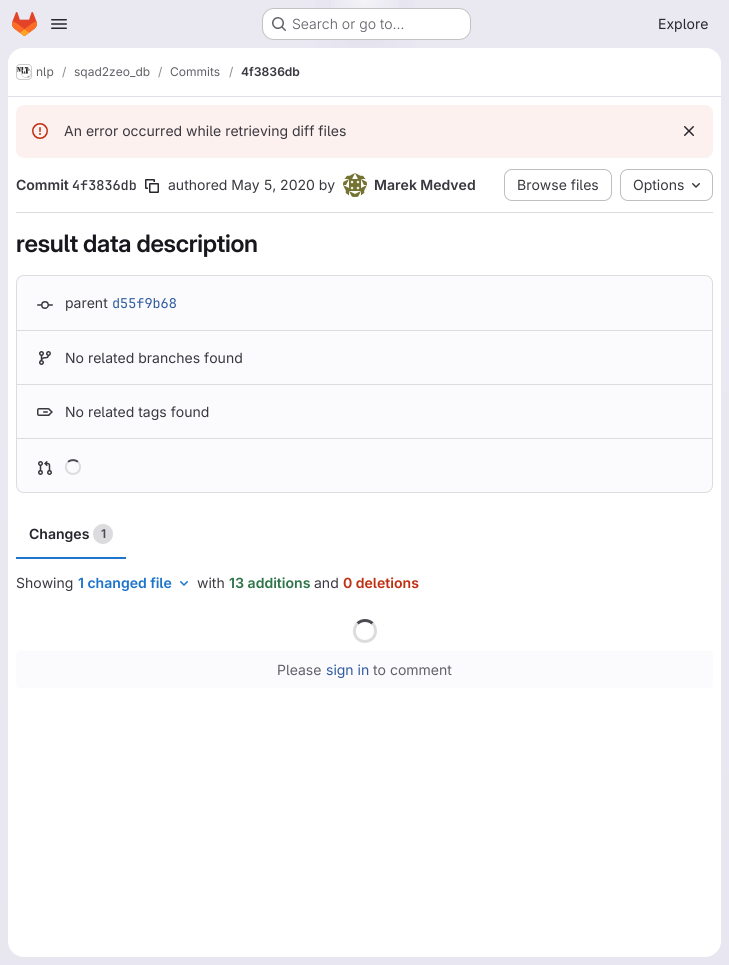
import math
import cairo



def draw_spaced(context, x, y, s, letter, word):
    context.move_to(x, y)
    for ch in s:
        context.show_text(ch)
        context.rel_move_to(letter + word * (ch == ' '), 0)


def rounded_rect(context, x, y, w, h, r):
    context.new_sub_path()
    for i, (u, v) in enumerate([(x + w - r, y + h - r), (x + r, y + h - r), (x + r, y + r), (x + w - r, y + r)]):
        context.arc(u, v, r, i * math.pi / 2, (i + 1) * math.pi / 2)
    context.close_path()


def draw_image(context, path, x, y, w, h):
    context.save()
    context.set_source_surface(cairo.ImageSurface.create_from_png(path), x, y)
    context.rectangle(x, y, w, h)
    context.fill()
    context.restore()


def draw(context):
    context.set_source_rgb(1, 1, 1)
    context.paint()
    gradient = cairo.LinearGradient(458, 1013, 271, -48)
    gradient.add_color_stop_rgba(0, 232 / 255, 230 / 255, 240 / 255, 1)
    gradient.add_color_stop_rgba(0.7, 234 / 255, 233 / 255, 242 / 255, 1)
    context.set_source(gradient)
    context.rectangle(0, 0, 729, 965)
    context.fill()
    gradient = cairo.RadialGradient(0, 0, 0, 0, 0, 1)
    gradient.set_matrix(cairo.Matrix(1 / 365, 0, 0, 1 / 965, -1 * 365 / 365, -1 * 0 / 965))
    gradient.add_color_stop_rgba(0, 228 / 255, 226 / 255, 237 / 255, 1)
    gradient.add_color_stop_rgba(0.19, 228 / 255, 226 / 255, 237 / 255, 0)
    context.set_source(gradient)
    context.rectangle(315, 0, 100, 48)
    context.fill()
    gradient = cairo.RadialGradient(0, 0, 0, 0, 0, 1)
    gradient.set_matrix(cairo.Matrix(1 / 365, 0, 0, 1 / 965, -1 * 365 / 365, -1 * 0 / 965))
    gradient.add_color_stop_rgba(0, 228 / 255, 226 / 255, 236 / 255, 1)
    gradient.add_color_stop_rgba(0.14, 228 / 255, 226 / 255, 236 / 255, 0)
    context.set_source(gradient)
    context.rectangle(347, 5, 36, 37)
    context.fill()
    gradient = cairo.RadialGradient(365, 0, 0, 365, 0, 1032)
    gradient.add_color_stop_rgba(0, 1, 1, 1, 0.6)
    gradient.add_color_stop_rgba(0.04, 1, 1, 1, 0)
    context.set_source(gradient)
    context.rectangle(331, 0, 68, 35)
    context.fill()
    draw_image(context, "images/1.png", 12, 12, 25, 24)
    draw_image(context, "images/2.png", 51, 19, 16, 10)
    context.set_source_rgb(1, 1, 1)
    rounded_rect(context, 262, 8, 209, 32, 12)
    context.fill()
    rounded_rect(context, 262.5, 8.5, 208, 31, 11.5)
    context.set_source_rgba(5 / 255, 5 / 255, 6 / 255, 0.24)
    context.set_line_width(1)
    context.stroke()
    draw_image(context, "images/3.png", 272, 17, 14, 14)
    context.set_source_rgb(1, 1, 1)
    rounded_rect(context, 8, 48, 713, 909, 16)
    context.fill()
    context.new_path()
    context.move_to(24, 48)
    context.line_to(705, 48)
    context.curve_to(714, 48, 721, 55, 721, 64)
    context.line_to(721, 97)
    context.line_to(8, 97)
    context.line_to(8, 64)
    context.curve_to(8, 55, 15, 48, 24, 48)
    context.close_path()
    context.fill()
    context.set_source_rgb(225 / 255, 223 / 255, 236 / 255)
    context.rectangle(8, 96, 713, 1)
    context.fill()
    rounded_rect(context, 16.5, 64.5, 15, 15, 3.5)
    context.set_source_rgb(220 / 255, 220 / 255, 222 / 255)
    context.stroke()
    draw_image(context, "images/4.png", 17, 67, 14, 11)
    rounded_rect(context, 16.5, 64.5, 15, 15, 3.5)
    context.set_source_rgba(5 / 255, 5 / 255, 6 / 255, 0.08)
    context.stroke()
    context.set_source_rgb(252 / 255, 241 / 255, 239 / 255)
    rounded_rect(context, 16, 105, 697, 53, 8)
    context.fill()
    draw_image(context, "images/5.png", 32, 123, 16, 16)
    draw_image(context, "images/6.png", 684, 126, 10, 10)
    draw_image(context, "images/7.png", 145, 179, 14, 14)
    context.arc(355, 185, 11.5, 0, 2 * math.pi)
    context.set_source_rgb(232 / 255, 231 / 255, 233 / 255)
    context.stroke()
    draw_image(context, "images/8.png", 343, 173, 24, 24)
    rounded_rect(context, 504.5, 169.5, 107, 31, 7.5)
    context.set_source_rgb(191 / 255, 191 / 255, 195 / 255)
    context.stroke()
    rounded_rect(context, 620.5, 169.5, 92, 31, 7.5)
    context.stroke()
    draw_image(context, "images/9.png", 692, 183, 8, 5)
    context.set_source_rgb(220 / 255, 220 / 255, 222 / 255)
    context.rectangle(16, 212, 697, 1)
    context.fill()
    context.set_source_rgb(251 / 255, 250 / 255, 253 / 255)
    rounded_rect(context, 16.5, 275.5, 696, 217, 7.5)
    context.fill_preserve()
    context.set_source_rgb(220 / 255, 220 / 255, 222 / 255)
    context.stroke()
    draw_image(context, "images/10.png", 37, 301, 16, 8)
    context.rectangle(17, 330, 695, 1)
    context.fill()
    draw_image(context, "images/11.png", 39, 351, 12, 14)
    context.rectangle(17, 384, 695, 1)
    context.fill()
    draw_image(context, "images/12.png", 37, 408, 16, 8)
    context.rectangle(17, 438, 695, 1)
    context.fill()
    draw_image(context, "images/13.png", 38, 461, 14, 14)
    context.new_path()
    context.move_to(68, 462)
    context.curve_to(70.5, 459.5, 75.5, 459.5, 78, 462)
    context.set_source_rgb(76 / 255, 75 / 255, 81 / 255)
    context.set_line_width(2)
    context.stroke()
    context.new_path()
    context.move_to(78, 462)
    context.curve_to(79.5, 463.5, 80, 465, 80, 467)
    context.curve_to(80, 475.5, 68, 476.5, 66, 468.5)
    context.curve_to(65.5, 466, 66.5, 463.5, 68, 462)
    context.set_source_rgb(220 / 255, 220 / 255, 222 / 255)
    context.stroke()
    context.arc(103, 534, 10, 0, 2 * math.pi)
    context.fill()
    context.set_source_rgb(31 / 255, 117 / 255, 203 / 255)
    context.rectangle(16, 557, 110, 2)
    context.fill()
    draw_image(context, "images/14.png", 180, 581, 8, 5)
    context.new_path()
    context.move_to(357.5, 623.5)
    context.curve_to(361.5, 619.5, 368.5, 619.5, 372.5, 623.5)
    context.set_source_rgb(76 / 255, 75 / 255, 81 / 255)
    context.set_line_width(3)
    context.stroke()
    context.new_path()
    context.move_to(372.5, 623.5)
    context.curve_to(374.5, 625.5, 375.5, 628, 375.5, 631)
    context.curve_to(375.5, 643.5, 357, 645.5, 354.5, 633)
    context.curve_to(354, 629.5, 355, 626, 357.5, 623.5)
    context.set_source_rgb(220 / 255, 220 / 255, 222 / 255)
    context.stroke()
    context.set_source_rgb(251 / 255, 250 / 255, 253 / 255)
    rounded_rect(context, 16, 651, 697, 37, 4)
    context.fill()
    context.select_font_face("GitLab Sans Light")
    context.set_font_size(14)
    context.set_source_rgb(98 / 255, 97 / 255, 104 / 255)
    context.move_to(292, 29)
    context.show_text("Search or go to…")
    context.select_font_face("GitLab Sans")
    context.set_source_rgb(40 / 255, 39 / 255, 45 / 255)
    context.move_to(658, 29)
    context.show_text("Explore")
    context.set_font_size(12)
    context.set_source_rgb(98 / 255, 97 / 255, 104 / 255)
    context.move_to(36, 76)
    context.show_text("nlp")
    context.set_source_rgb(137 / 255, 136 / 255, 141 / 255)
    context.move_to(62, 76)
    context.show_text("/")
    context.set_source_rgb(98 / 255, 97 / 255, 104 / 255)
    context.move_to(74, 76)
    context.show_text("sqad2zeo_db")
    context.set_source_rgb(137 / 255, 136 / 255, 141 / 255)
    context.move_to(158, 76)
    context.show_text("/")
    context.set_source_rgb(98 / 255, 97 / 255, 104 / 255)
    context.move_to(170, 76)
    context.show_text("Commits")
    context.set_source_rgb(137 / 255, 136 / 255, 141 / 255)
    context.move_to(229, 76)
    context.show_text("/")
    context.select_font_face("GitLab Sans SemiBold")
    context.set_source_rgb(58 / 255, 56 / 255, 63 / 255)
    context.move_to(241, 76)
    context.show_text("4f3836db")
    context.select_font_face("GitLab Sans")
    context.set_font_size(14)
    context.move_to(64, 136)
    context.show_text("An error occurred while retrieving diff files")
    context.select_font_face("GitLab Sans SemiBold")
    context.move_to(16, 190)
    context.show_text("Commit")
    context.select_font_face("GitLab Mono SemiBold")
    context.set_font_size(13.5)
    context.move_to(72, 190)
    context.show_text("4f3836db")
    context.select_font_face("GitLab Sans")
    context.set_font_size(14)
    context.move_to(168, 190)
    context.show_text("authored May 5, 2020 by")
    context.select_font_face("GitLab Sans SemiBold")
    context.move_to(374, 190)
    context.show_text("Marek Medved")
    context.select_font_face("GitLab Sans")
    context.move_to(517, 190)
    context.show_text("Browse files")
    context.move_to(633, 190)
    context.show_text("Options")
    context.select_font_face("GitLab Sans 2 SemiBold")
    context.set_font_size(24)
    context.set_source_rgb(24 / 255, 23 / 255, 29 / 255)
    draw_spaced(context, 16, 252, "result data description", -0.25, 0)
    context.select_font_face("GitLab Sans")
    context.set_font_size(14)
    context.set_source_rgb(58 / 255, 56 / 255, 63 / 255)
    context.move_to(65, 308)
    context.show_text("parent")
    context.select_font_face("GitLab Mono")
    context.set_font_size(13.5)
    context.set_source_rgb(47 / 255, 92 / 255, 160 / 255)
    context.move_to(112, 308)
    context.show_text("d55f9b68")
    context.select_font_face("GitLab Sans")
    context.set_font_size(14)
    context.set_source_rgb(58 / 255, 56 / 255, 63 / 255)
    context.move_to(65, 363)
    context.show_text("No related branches found")
    context.move_to(65, 417)
    context.show_text("No related tags found")
    context.select_font_face("GitLab Sans SemiBold")
    context.set_source_rgb(40 / 255, 39 / 255, 45 / 255)
    context.move_to(29, 539)
    context.show_text("Changes")
    context.set_font_size(12)
    context.set_source_rgb(76 / 255, 75 / 255, 81 / 255)
    context.move_to(101, 538)
    context.show_text("1")
    context.select_font_face("GitLab Sans")
    context.set_font_size(14)
    context.set_source_rgb(58 / 255, 56 / 255, 63 / 255)
    context.move_to(16, 588)
    context.show_text("Showing")
    context.select_font_face("GitLab Sans SemiBold")
    context.set_source_rgb(31 / 255, 117 / 255, 203 / 255)
    context.move_to(78, 588)
    context.show_text("1 changed file")
    context.select_font_face("GitLab Sans")
    context.set_source_rgb(58 / 255, 56 / 255, 63 / 255)
    context.move_to(197, 588)
    context.show_text("with")
    context.select_font_face("GitLab Sans SemiBold")
    context.set_source_rgb(47 / 255, 117 / 255, 73 / 255)
    context.move_to(229, 588)
    context.show_text("13 additions")
    context.select_font_face("GitLab Sans")
    context.set_source_rgb(58 / 255, 56 / 255, 63 / 255)
    context.move_to(314, 588)
    context.show_text("and")
    context.select_font_face("GitLab Sans SemiBold")
    context.set_source_rgb(192 / 255, 47 / 255, 18 / 255)
    context.move_to(343, 588)
    context.show_text("0 deletions")
    context.select_font_face("GitLab Sans")
    context.set_source_rgb(98 / 255, 97 / 255, 104 / 255)
    context.move_to(277, 675)
    context.show_text("Please")
    context.set_source_rgb(47 / 255, 92 / 255, 160 / 255)
    context.move_to(326, 675)
    context.show_text("sign in")
    context.set_source_rgb(98 / 255, 97 / 255, 104 / 255)
    context.move_to(373, 675)
    context.show_text("to comment")


surface = cairo.ImageSurface(cairo.Format.RGB24, 729, 965)
context = cairo.Context(surface)
options = cairo.FontOptions()
options.set_hint_metrics(cairo.HintMetrics.OFF)
options.set_hint_style(cairo.HintStyle.NONE)
context.set_font_options(options)
context.set_miter_limit(4)
draw(context)
surface.write_to_png("out.png")
